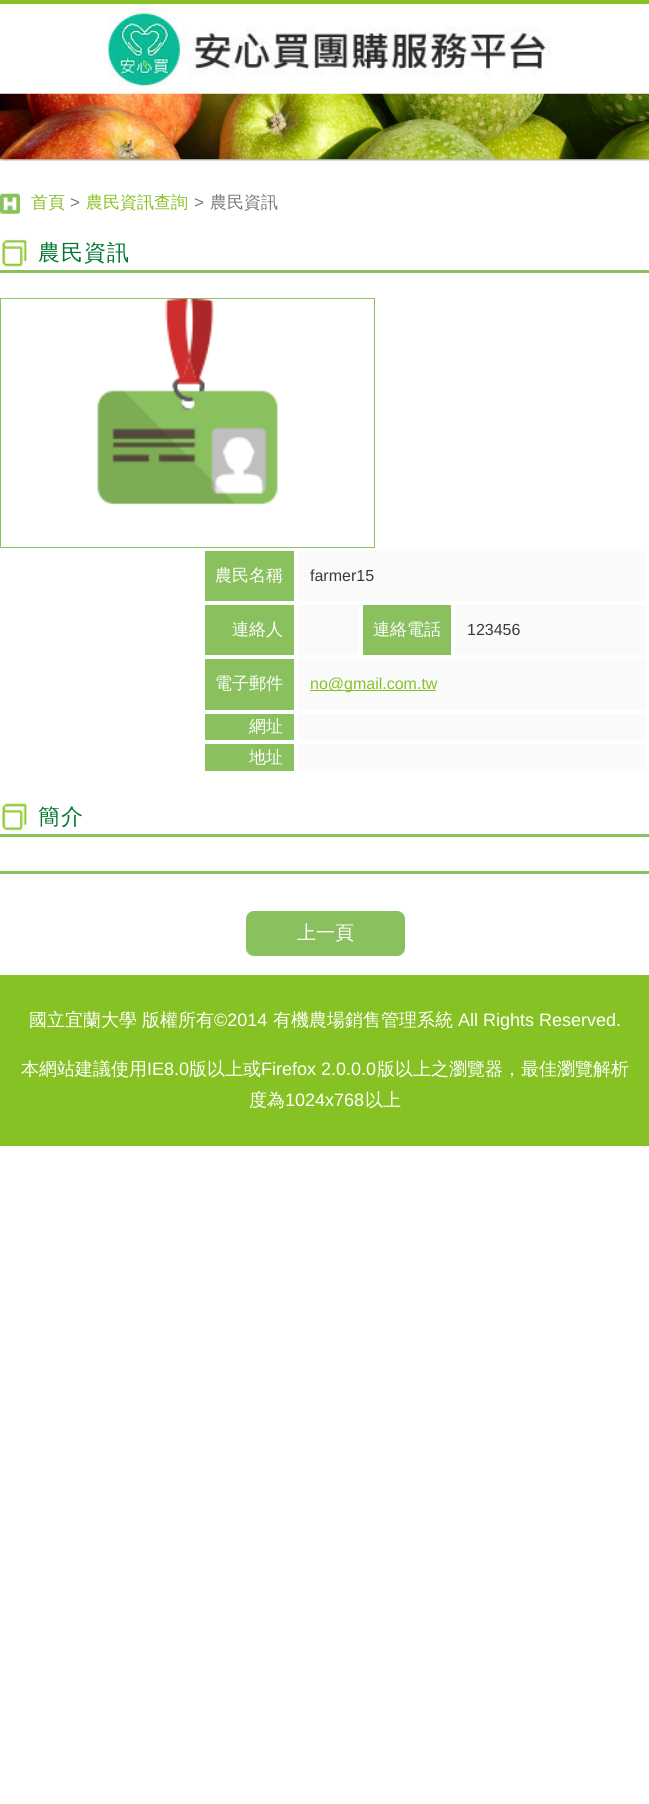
import math
import cairo



def draw_spaced(context, x, y, s, letter, word):
    context.move_to(x, y)
    for ch in s:
        context.show_text(ch)
        context.rel_move_to(letter + word * (ch == ' '), 0)


def rounded_rect(context, x, y, w, h, r):
    context.new_sub_path()
    for i, (u, v) in enumerate([(x + w - r, y + h - r), (x + r, y + h - r), (x + r, y + r), (x + w - r, y + r)]):
        context.arc(u, v, r, i * math.pi / 2, (i + 1) * math.pi / 2)
    context.close_path()


def draw_image(context, path, x, y, w, h):
    context.save()
    context.set_source_surface(cairo.ImageSurface.create_from_png(path), x, y)
    context.rectangle(x, y, w, h)
    context.fill()
    context.restore()


def draw(context):
    context.set_source_rgb(1, 1, 1)
    context.paint()
    context.set_source_rgb(135 / 255, 194 / 255, 37 / 255)
    context.rectangle(0, 0, 649, 4)
    context.fill()
    draw_image(context, "images/1.png", 108, 7, 443, 80)
    draw_image(context, "images/2.png", 0, 93, 649, 69)
    draw_image(context, "images/3.png", 0, 193, 20, 21)
    draw_image(context, "images/4.png", 2, 239, 25, 28)
    context.set_source_rgb(138 / 255, 192 / 255, 94 / 255)
    context.rectangle(0, 270, 649, 3)
    context.fill()
    context.rectangle(0.5, 298.5, 374, 249)
    context.set_line_width(1)
    context.stroke()
    draw_image(context, "images/5.png", 1, 298, 373, 207)
    context.rectangle(205, 551, 89, 50)
    context.fill()
    context.set_source_rgb(250 / 255, 250 / 255, 250 / 255)
    context.rectangle(298, 551, 348, 50)
    context.fill()
    context.set_source_rgb(138 / 255, 192 / 255, 94 / 255)
    context.rectangle(205, 605, 89, 50)
    context.fill()
    context.set_source_rgb(250 / 255, 250 / 255, 250 / 255)
    context.rectangle(298, 605, 61, 50)
    context.fill()
    context.set_source_rgb(138 / 255, 192 / 255, 94 / 255)
    context.rectangle(363, 605, 88, 50)
    context.fill()
    context.set_source_rgb(250 / 255, 250 / 255, 250 / 255)
    context.rectangle(455, 605, 191, 50)
    context.fill()
    context.set_source_rgb(138 / 255, 192 / 255, 94 / 255)
    context.rectangle(205, 659, 89, 51)
    context.fill()
    context.set_source_rgb(250 / 255, 250 / 255, 250 / 255)
    context.rectangle(298, 659, 348, 51)
    context.fill()
    context.set_source_rgb(135 / 255, 194 / 255, 37 / 255)
    context.rectangle(310, 690, 126, 1)
    context.fill()
    context.set_source_rgb(138 / 255, 192 / 255, 94 / 255)
    context.rectangle(205, 714, 89, 26)
    context.fill()
    context.set_source_rgb(250 / 255, 250 / 255, 250 / 255)
    context.rectangle(298, 714, 348, 26)
    context.fill()
    context.set_source_rgb(138 / 255, 192 / 255, 94 / 255)
    context.rectangle(205, 744, 89, 27)
    context.fill()
    context.set_source_rgb(250 / 255, 250 / 255, 250 / 255)
    context.rectangle(298, 744, 348, 27)
    context.fill()
    draw_image(context, "images/6.png", 2, 803, 25, 28)
    context.set_source_rgb(138 / 255, 192 / 255, 94 / 255)
    context.rectangle(0, 834, 649, 3)
    context.fill()
    context.rectangle(0, 871, 649, 3)
    context.fill()
    rounded_rect(context, 246, 911, 159, 45, 8)
    context.fill()
    context.set_source_rgb(135 / 255, 194 / 255, 37 / 255)
    context.rectangle(0, 975, 649, 171)
    context.fill()
    context.select_font_face("WenQuanYi Zen Hei Medium")
    context.set_font_size(17)
    context.move_to(31, 208)
    context.show_text("首頁")
    context.select_font_face("Liberation Sans")
    context.set_source_rgb(121 / 255, 121 / 255, 121 / 255)
    context.move_to(70, 208)
    context.show_text(">")
    context.select_font_face("WenQuanYi Zen Hei Medium")
    context.set_source_rgb(135 / 255, 194 / 255, 37 / 255)
    context.move_to(86, 208)
    context.show_text("農民資訊查詢")
    context.select_font_face("Liberation Sans")
    context.set_source_rgb(121 / 255, 121 / 255, 121 / 255)
    context.move_to(194, 208)
    context.show_text(">")
    context.select_font_face("WenQuanYi Zen Hei Medium")
    context.move_to(210, 208)
    context.show_text("農民資訊")
    context.set_font_size(22)
    context.set_source_rgb(2 / 255, 118 / 255, 47 / 255)
    draw_spaced(context, 38, 260, "農民資訊", 1, 0)
    context.set_font_size(17)
    context.set_source_rgb(1, 1, 1)
    context.move_to(215, 581)
    context.show_text("農民名稱")
    context.select_font_face("Liberation Sans")
    context.set_font_size(16)
    context.set_source_rgb(57 / 255, 57 / 255, 57 / 255)
    context.move_to(310, 581)
    context.show_text("farmer15")
    context.select_font_face("WenQuanYi Zen Hei Medium")
    context.set_font_size(17)
    context.set_source_rgb(1, 1, 1)
    context.move_to(232, 635)
    context.show_text("連絡人")
    context.move_to(373, 635)
    context.show_text("連絡電話")
    context.select_font_face("Liberation Sans")
    context.set_font_size(16)
    context.set_source_rgb(57 / 255, 57 / 255, 57 / 255)
    context.move_to(467, 635)
    context.show_text("123456")
    context.select_font_face("WenQuanYi Zen Hei Medium")
    context.set_font_size(17)
    context.set_source_rgb(1, 1, 1)
    context.move_to(215, 689)
    context.show_text("電子郵件")
    context.select_font_face("Liberation Sans")
    context.set_font_size(16)
    context.set_source_rgb(135 / 255, 194 / 255, 37 / 255)
    context.move_to(310, 689)
    context.show_text("no@gmail.com.tw")
    context.select_font_face("WenQuanYi Zen Hei Medium")
    context.set_font_size(17)
    context.set_source_rgb(1, 1, 1)
    context.move_to(249, 732)
    context.show_text("網址")
    context.move_to(249, 763)
    context.show_text("地址")
    context.set_font_size(22)
    context.set_source_rgb(2 / 255, 118 / 255, 47 / 255)
    draw_spaced(context, 38, 824, "簡介", 1, 0)
    context.set_font_size(19)
    context.set_source_rgb(1, 1, 1)
    context.move_to(297, 939)
    context.show_text("上一頁")
    context.set_font_size(18)
    context.move_to(29, 1026)
    context.show_text("國立宜蘭大學")
    context.move_to(142, 1026)
    context.show_text("版權所有")
    context.select_font_face("Liberation Sans")
    context.move_to(214, 1026)
    context.show_text("©2014")
    context.select_font_face("WenQuanYi Zen Hei Medium")
    context.move_to(273, 1026)
    context.show_text("有機農場銷售管理系統")
    context.select_font_face("Liberation Sans")
    context.move_to(458, 1026)
    context.show_text("All Rights Reserved.")
    context.select_font_face("WenQuanYi Zen Hei Medium")
    context.move_to(21, 1075)
    context.show_text("本網站建議使用")
    context.select_font_face("Liberation Sans")
    context.move_to(147, 1075)
    context.show_text("IE8.0")
    context.select_font_face("WenQuanYi Zen Hei Medium")
    context.move_to(189, 1075)
    context.show_text("版以上或")
    context.select_font_face("Liberation Sans")
    context.move_to(261, 1075)
    context.show_text("Firefox 2.0.0.0")
    context.select_font_face("WenQuanYi Zen Hei Medium")
    context.move_to(377, 1075)
    context.show_text("版以上之瀏覽器，最佳瀏覽解析")
    context.move_to(249, 1106)
    context.show_text("度為")
    context.select_font_face("Liberation Sans")
    context.move_to(285, 1106)
    context.show_text("1024x768")
    context.select_font_face("WenQuanYi Zen Hei Medium")
    context.move_to(365, 1106)
    context.show_text("以上")


surface = cairo.ImageSurface(cairo.Format.RGB24, 649, 1804)
context = cairo.Context(surface)
options = cairo.FontOptions()
options.set_hint_metrics(cairo.HintMetrics.OFF)
options.set_hint_style(cairo.HintStyle.NONE)
context.set_font_options(options)
context.set_miter_limit(4)
draw(context)
surface.write_to_png("out.png")
